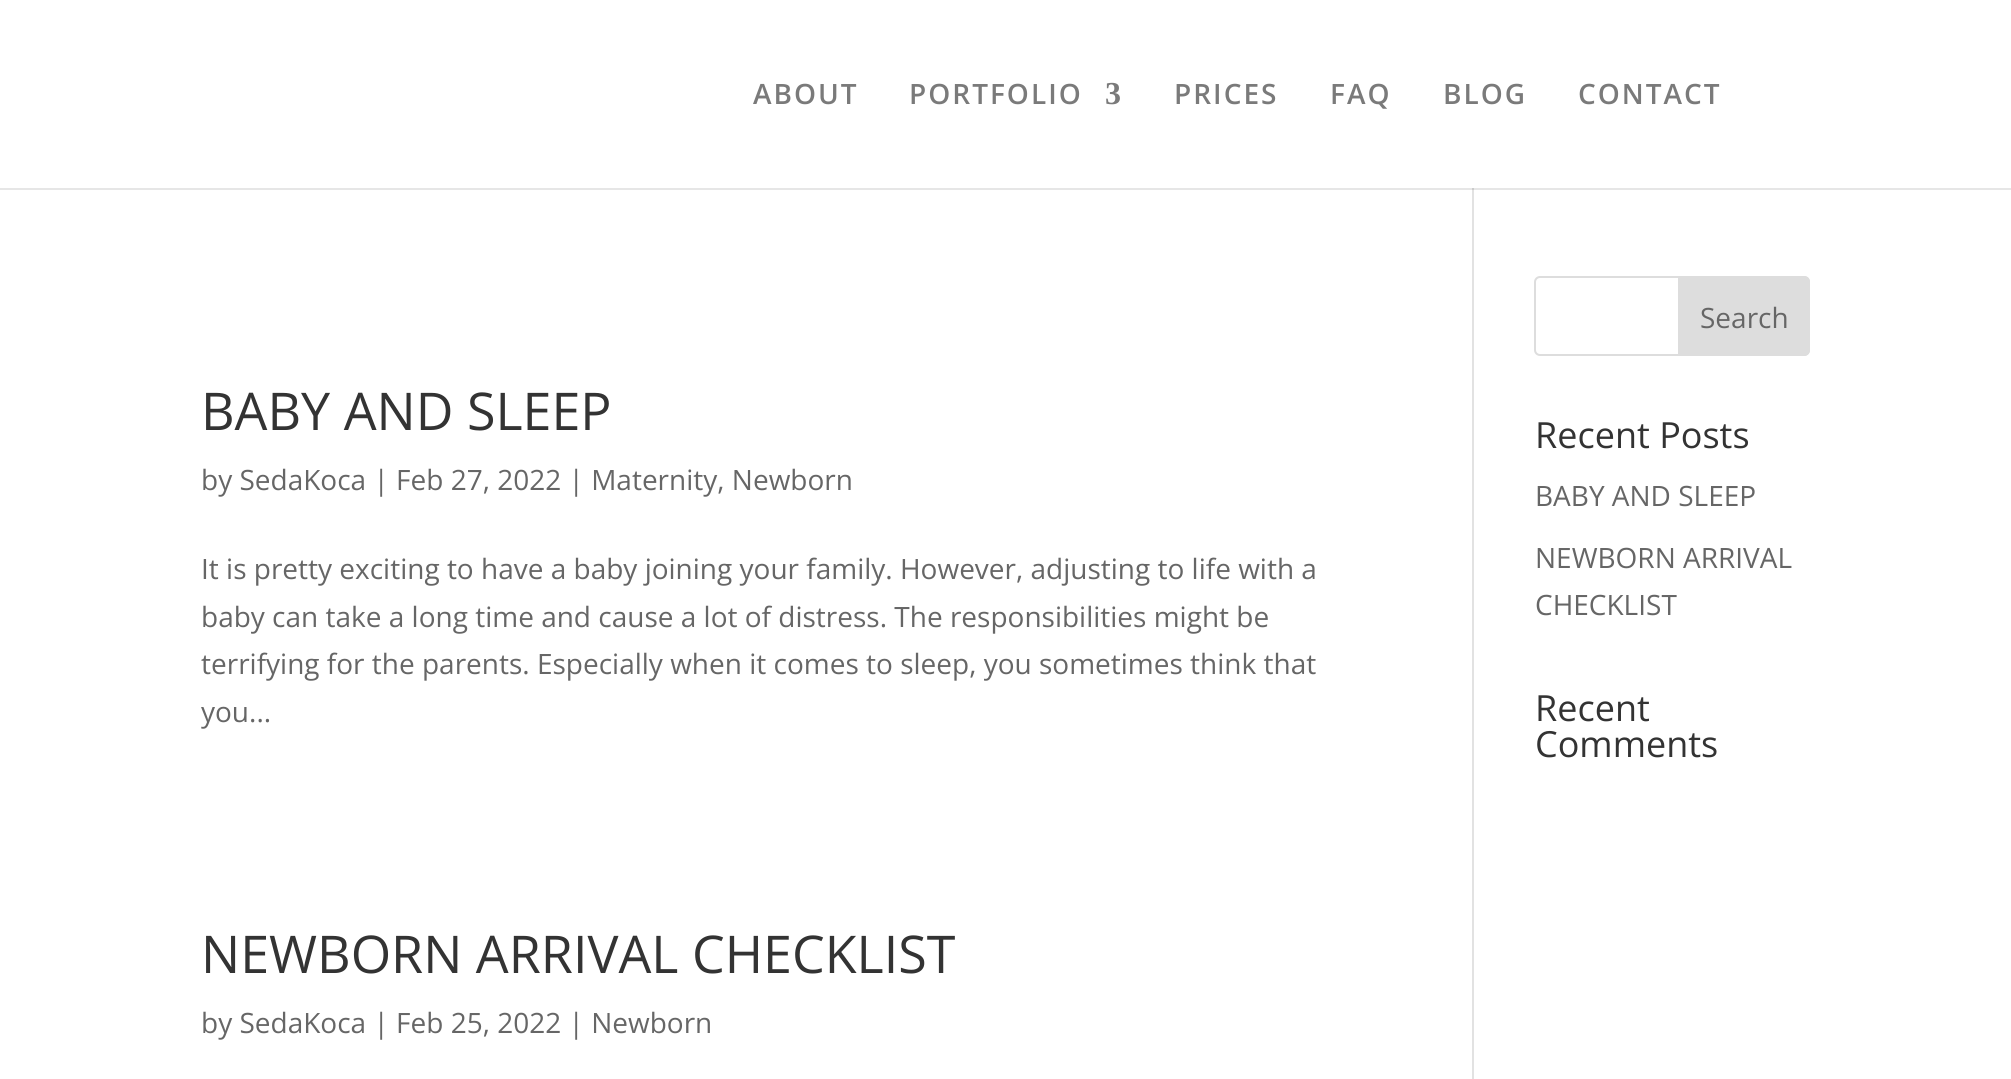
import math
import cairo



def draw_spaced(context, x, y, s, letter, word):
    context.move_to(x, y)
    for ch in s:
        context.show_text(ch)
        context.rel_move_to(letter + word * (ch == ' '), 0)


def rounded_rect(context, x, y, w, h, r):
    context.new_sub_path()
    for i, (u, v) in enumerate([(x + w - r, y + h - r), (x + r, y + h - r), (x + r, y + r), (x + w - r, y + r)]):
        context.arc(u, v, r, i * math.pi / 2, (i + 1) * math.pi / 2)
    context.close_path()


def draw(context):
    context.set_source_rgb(1, 1, 1)
    context.paint()
    context.set_source_rgb(230 / 255, 230 / 255, 230 / 255)
    context.rectangle(0, 188, 2011, 2)
    context.fill()
    context.set_source_rgb(226 / 255, 226 / 255, 226 / 255)
    context.rectangle(1472, 190, 2, 889)
    context.fill()
    context.set_source_rgb(203 / 255, 203 / 255, 203 / 255)
    context.rectangle(1472, 188, 2, 2)
    context.fill()
    rounded_rect(context, 1535, 277, 274, 78, 5)
    context.set_source_rgb(221 / 255, 221 / 255, 221 / 255)
    context.stroke()
    context.new_path()
    context.move_to(1679, 277)
    context.line_to(1804, 277)
    context.curve_to(1807, 277, 1809, 279, 1809, 282)
    context.line_to(1809, 350)
    context.curve_to(1809, 353, 1807, 355, 1804, 355)
    context.line_to(1679, 355)
    context.close_path()
    context.fill_preserve()
    context.stroke()
    context.select_font_face("Open Sans SemiBold")
    context.set_font_size(28)
    context.set_source_rgb(122 / 255, 122 / 255, 122 / 255)
    draw_spaced(context, 753, 104, "ABOUT", 2, 0)
    draw_spaced(context, 909, 104, "PORTFOLIO", 2, 0)
    context.select_font_face("Liberation Serif", cairo.FontSlant.NORMAL, cairo.FontWeight.BOLD)
    context.set_font_size(32)
    draw_spaced(context, 1105, 104, "3", 2, 0)
    context.select_font_face("Open Sans SemiBold")
    context.set_font_size(28)
    draw_spaced(context, 1174, 104, "PRICES", 2, 0)
    draw_spaced(context, 1330, 104, "FAQ", 2, 0)
    draw_spaced(context, 1443, 104, "BLOG", 2, 0)
    draw_spaced(context, 1578, 104, "CONTACT", 2, 0)
    context.select_font_face("Open Sans")
    context.set_font_size(52)
    context.set_source_rgb(51 / 255, 51 / 255, 51 / 255)
    context.move_to(201, 430)
    context.show_text("BABY AND SLEEP")
    context.set_font_size(28)
    context.set_source_rgb(102 / 255, 102 / 255, 102 / 255)
    context.move_to(201, 490)
    context.show_text("by SedaKoca | Feb 27, 2022 | Maternity, Newborn")
    context.move_to(201, 579)
    context.show_text("It is pretty exciting to have a baby joining your family. However, adjusting to life with a")
    context.move_to(201, 627)
    context.show_text("baby can take a long time and cause a lot of distress. The responsibilities might be")
    context.move_to(201, 674)
    context.show_text("terrifying for the parents. Especially when it comes to sleep, you sometimes think that")
    context.move_to(201, 722)
    context.show_text("you...")
    context.set_font_size(52)
    context.set_source_rgb(51 / 255, 51 / 255, 51 / 255)
    context.move_to(201, 973)
    context.show_text("NEWBORN ARRIVAL CHECKLIST")
    context.set_font_size(28)
    context.set_source_rgb(102 / 255, 102 / 255, 102 / 255)
    context.move_to(201, 1033)
    context.show_text("by SedaKoca | Feb 25, 2022 | Newborn")
    context.move_to(1700, 328)
    context.show_text("Search")
    context.set_font_size(36)
    context.set_source_rgb(51 / 255, 51 / 255, 51 / 255)
    context.move_to(1535, 448)
    context.show_text("Recent Posts")
    context.set_font_size(28)
    context.set_source_rgb(102 / 255, 102 / 255, 102 / 255)
    context.move_to(1535, 506)
    context.show_text("BABY AND SLEEP")
    context.move_to(1535, 568)
    context.show_text("NEWBORN ARRIVAL")
    context.move_to(1535, 615)
    context.show_text("CHECKLIST")
    context.set_font_size(36)
    context.set_source_rgb(51 / 255, 51 / 255, 51 / 255)
    context.move_to(1535, 721)
    context.show_text("Recent")
    context.move_to(1535, 757)
    context.show_text("Comments")


surface = cairo.ImageSurface(cairo.Format.RGB24, 2011, 1079)
context = cairo.Context(surface)
options = cairo.FontOptions()
options.set_hint_metrics(cairo.HintMetrics.OFF)
options.set_hint_style(cairo.HintStyle.NONE)
context.set_font_options(options)
context.set_miter_limit(4)
draw(context)
surface.write_to_png("out.png")
